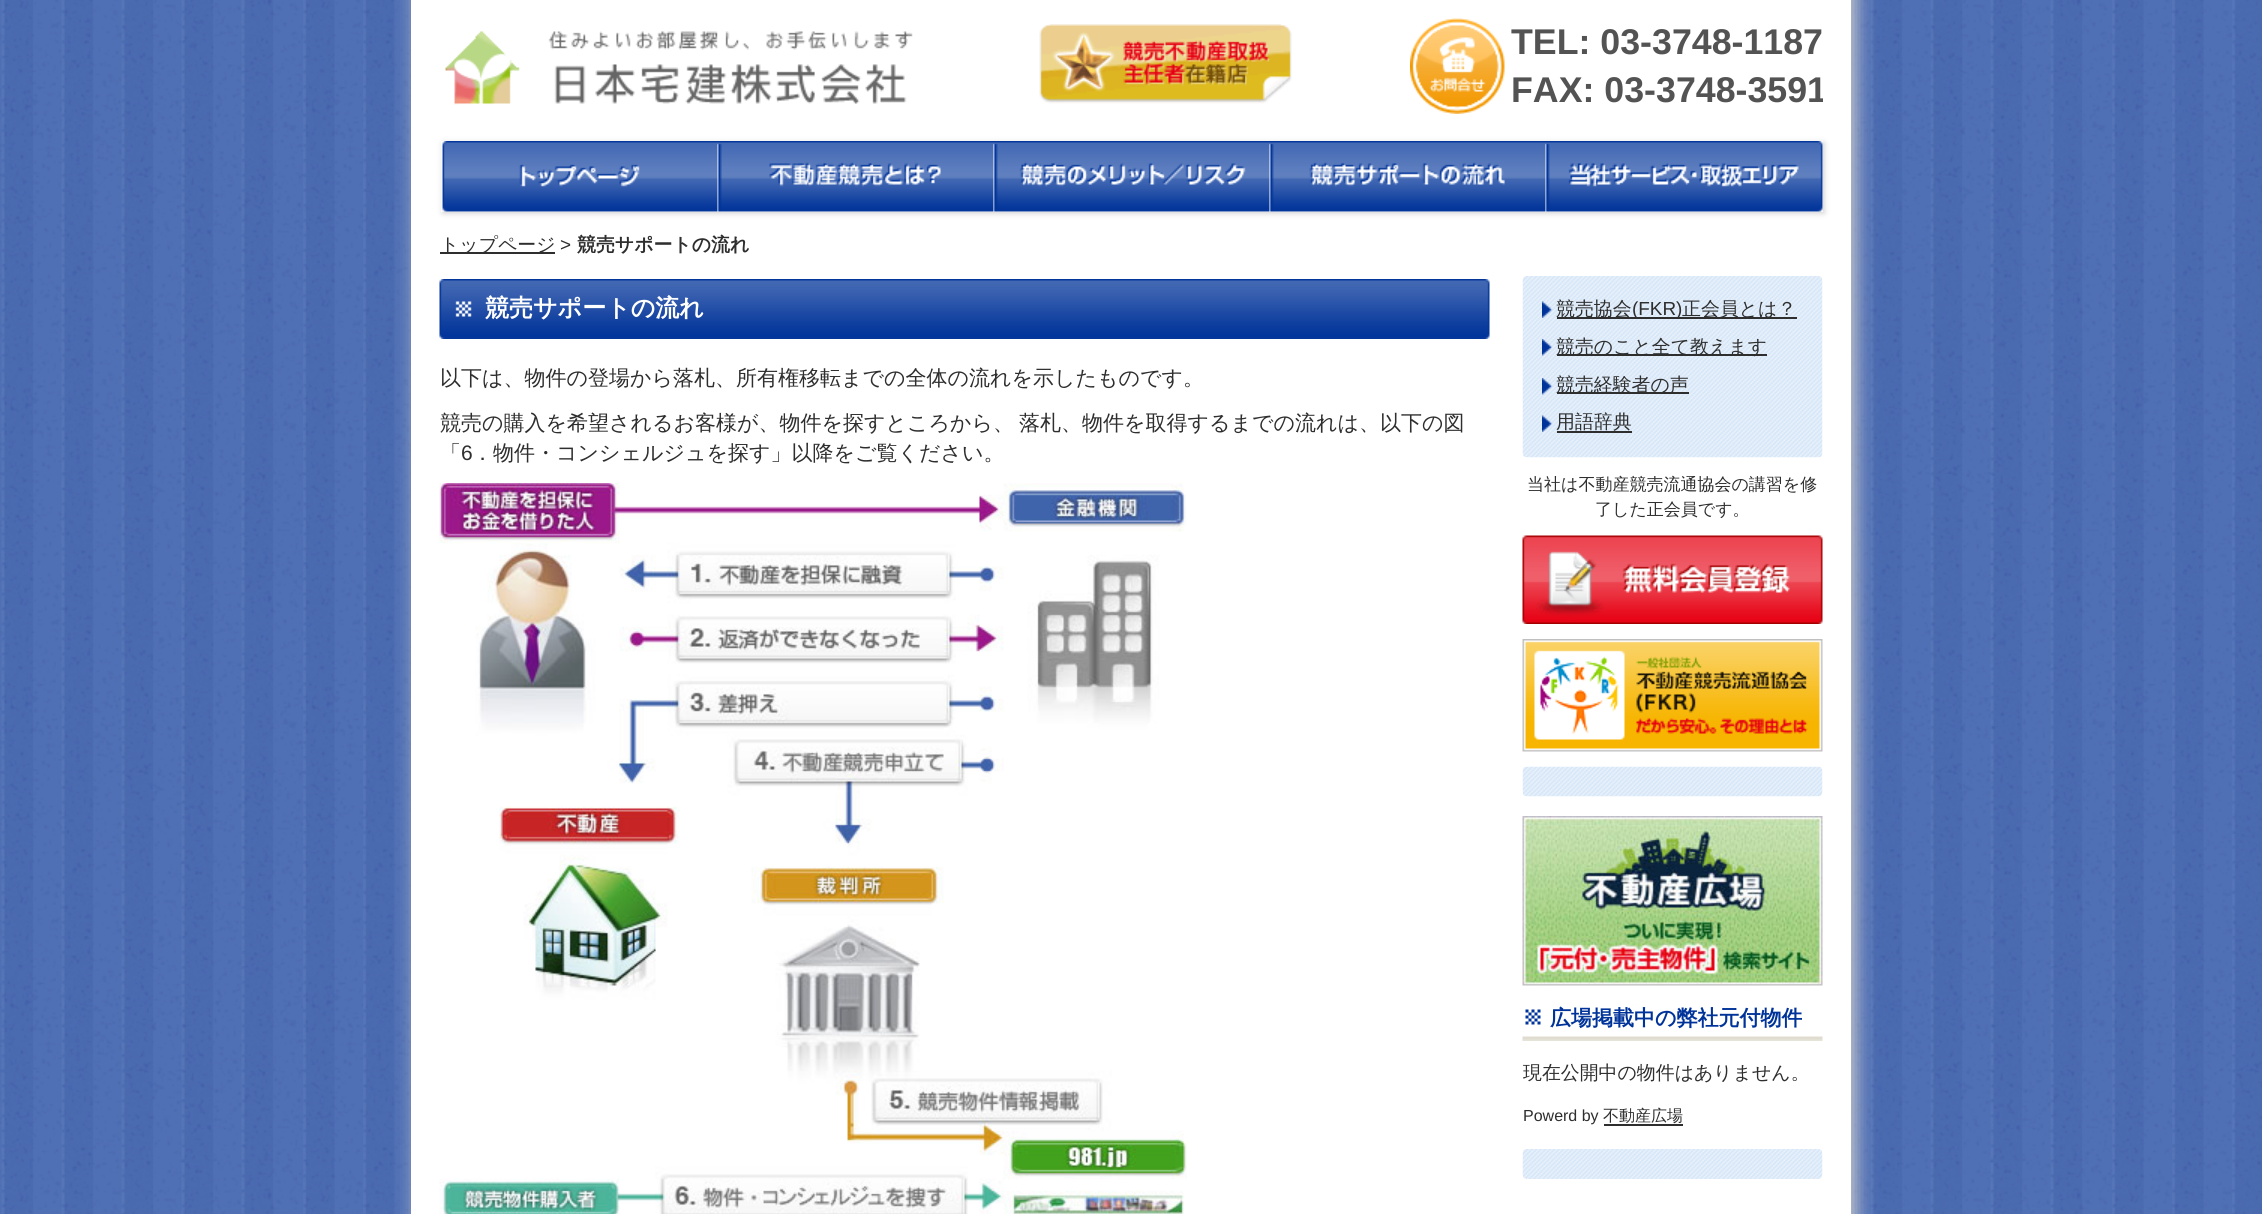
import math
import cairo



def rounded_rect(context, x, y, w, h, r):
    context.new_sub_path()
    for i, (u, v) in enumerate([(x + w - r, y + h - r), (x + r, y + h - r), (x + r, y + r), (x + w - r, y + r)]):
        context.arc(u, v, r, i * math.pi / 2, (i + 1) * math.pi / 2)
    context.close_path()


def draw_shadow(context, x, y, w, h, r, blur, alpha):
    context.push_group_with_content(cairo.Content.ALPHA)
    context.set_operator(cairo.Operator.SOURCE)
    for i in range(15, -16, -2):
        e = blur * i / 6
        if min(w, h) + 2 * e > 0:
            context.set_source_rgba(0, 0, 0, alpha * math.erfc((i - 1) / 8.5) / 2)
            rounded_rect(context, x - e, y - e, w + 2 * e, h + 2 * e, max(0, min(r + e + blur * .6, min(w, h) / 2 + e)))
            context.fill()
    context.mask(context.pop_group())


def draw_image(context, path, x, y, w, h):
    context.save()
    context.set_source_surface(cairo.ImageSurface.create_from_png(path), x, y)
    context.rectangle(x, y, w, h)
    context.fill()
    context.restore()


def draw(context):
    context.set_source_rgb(1, 1, 1)
    context.paint()
    draw_image(context, "images/1.png", 0, 0, 2262, 1214)
    context.set_source_rgb(204 / 255, 204 / 255, 204 / 255)
    draw_shadow(context, 416, -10, 1440, 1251, 0, 9, 1)
    context.set_source_rgb(1, 1, 1)
    context.rectangle(411, 0, 1440, 1214)
    context.fill()
    draw_image(context, "images/2.png", 445, 31, 468, 74)
    draw_image(context, "images/3.png", 1039, 24, 253, 80)
    draw_image(context, "images/4.png", 1410, 18, 95, 96)
    context.save()
    context.set_fill_rule(cairo.FillRule.EVEN_ODD)
    context.new_path()
    context.move_to(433, 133)
    context.line_to(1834, 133)
    context.line_to(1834, 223)
    context.line_to(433, 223)
    context.close_path()
    context.move_to(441, 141)
    context.line_to(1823, 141)
    context.line_to(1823, 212)
    context.line_to(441, 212)
    context.close_path()
    context.clip()
    context.set_source_rgb(204 / 255, 204 / 255, 204 / 255)
    draw_shadow(context, 443, 143, 1381, 70, 0, 3, 1)
    context.restore()
    draw_image(context, "images/5.png", 441, 141, 276, 71)
    draw_image(context, "images/6.png", 717, 141, 276, 71)
    draw_image(context, "images/7.png", 993, 141, 276, 71)
    draw_image(context, "images/8.png", 1269, 141, 276, 71)
    draw_image(context, "images/9.png", 1545, 141, 278, 71)
    context.set_source_rgb(46 / 255, 46 / 255, 46 / 255)
    context.rectangle(440, 252, 115, 2)
    context.fill()
    draw_image(context, "images/10.png", 439, 279, 1051, 60)
    draw_image(context, "images/11.png", 439, 483, 748, 731)
    draw_image(context, "images/12.png", 1522, 276, 301, 182)
    draw_image(context, "images/13.png", 1542, 301, 11, 17)
    context.rectangle(1557, 317, 240, 2)
    context.fill()
    draw_image(context, "images/14.png", 1542, 339, 11, 17)
    context.rectangle(1557, 354, 210, 2)
    context.fill()
    draw_image(context, "images/15.png", 1542, 378, 11, 17)
    context.rectangle(1557, 392, 132, 2)
    context.fill()
    draw_image(context, "images/16.png", 1542, 415, 11, 17)
    context.rectangle(1557, 431, 75, 2)
    context.fill()
    draw_image(context, "images/17.png", 1522, 535, 301, 89)
    draw_image(context, "images/18.png", 1522, 639, 301, 113)
    draw_image(context, "images/19.png", 1522, 766, 301, 31)
    draw_image(context, "images/20.png", 1522, 816, 301, 170)
    draw_image(context, "images/21.png", 1522, 1009, 301, 32)
    context.rectangle(1604, 1124, 79, 2)
    context.fill()
    draw_image(context, "images/22.png", 1522, 1149, 301, 30)
    context.select_font_face("Liberation Sans", cairo.FontSlant.NORMAL, cairo.FontWeight.BOLD)
    context.set_font_size(35.75)
    context.set_source_rgb(83 / 255, 83 / 255, 83 / 255)
    context.move_to(1511, 54)
    context.show_text("TEL: 03-3748-1187")
    context.save()
    context.rectangle(1410, 3, 413, 117)
    context.clip()
    context.move_to(1511, 102)
    context.show_text("FAX: 03-3748-3591")
    context.restore()
    context.select_font_face("WenQuanYi Zen Hei Medium")
    context.set_font_size(18.9)
    context.set_source_rgb(46 / 255, 46 / 255, 46 / 255)
    context.move_to(440, 251)
    context.show_text("トップページ")
    context.select_font_face("Liberation Sans")
    context.move_to(560, 251)
    context.show_text(">")
    context.select_font_face("WenQuanYi Zen Hei", cairo.FontSlant.NORMAL, cairo.FontWeight.BOLD)
    context.move_to(577, 251)
    context.show_text("競売サポートの流れ")
    context.set_font_size(24)
    context.set_source_rgb(1, 1, 1)
    context.move_to(485, 316)
    context.show_text("競売サポートの流れ")
    context.select_font_face("WenQuanYi Zen Hei Medium")
    context.set_font_size(21)
    context.set_source_rgb(46 / 255, 46 / 255, 46 / 255)
    context.move_to(440, 385)
    context.show_text("以下は、物件の登場から落札、所有権移転までの全体の流れを示したものです。")
    context.move_to(440, 430)
    context.show_text("競売の購入を希望されるお客様が、物件を探すところから、")
    context.move_to(1019, 430)
    context.show_text("落札、物件を取得するまでの流れは、以下の図")
    context.move_to(440, 460)
    context.show_text("「")
    context.select_font_face("Liberation Sans")
    context.move_to(461, 460)
    context.show_text("6")
    context.select_font_face("WenQuanYi Zen Hei Medium")
    context.move_to(472, 460)
    context.show_text("．物件・コンシェルジュを探す」以降をご覧ください。")
    context.set_font_size(18.9)
    context.move_to(1556, 315)
    context.show_text("競売協会")
    context.select_font_face("Liberation Sans")
    context.move_to(1632, 315)
    context.show_text("(FKR)")
    context.select_font_face("WenQuanYi Zen Hei Medium")
    context.move_to(1682, 315)
    context.show_text("正会員とは？")
    context.move_to(1556, 353)
    context.show_text("競売のこと全て教えます")
    context.move_to(1556, 391)
    context.show_text("競売経験者の声")
    context.move_to(1556, 428)
    context.show_text("用語辞典")
    context.set_font_size(17)
    context.move_to(1527, 490)
    context.show_text("当社は不動産競売流通協会の講習を修")
    context.move_to(1595, 515)
    context.show_text("了した正会員です。")
    context.select_font_face("WenQuanYi Zen Hei", cairo.FontSlant.NORMAL, cairo.FontWeight.BOLD)
    context.set_font_size(21)
    context.set_source_rgb(0, 51 / 255, 153 / 255)
    context.move_to(1550, 1025)
    context.show_text("広場掲載中の弊社元付物件")
    context.select_font_face("WenQuanYi Zen Hei Medium")
    context.set_font_size(18.9)
    context.set_source_rgb(46 / 255, 46 / 255, 46 / 255)
    context.move_to(1523, 1079)
    context.show_text("現在公開中の物件はありません。")
    context.select_font_face("Liberation Sans")
    context.set_font_size(16)
    context.move_to(1523, 1121)
    context.show_text("Powerd by")
    context.select_font_face("WenQuanYi Zen Hei Medium")
    context.move_to(1603, 1121)
    context.show_text("不動産広場")


surface = cairo.ImageSurface(cairo.Format.RGB24, 2262, 1214)
context = cairo.Context(surface)
options = cairo.FontOptions()
options.set_hint_metrics(cairo.HintMetrics.OFF)
options.set_hint_style(cairo.HintStyle.NONE)
context.set_font_options(options)
context.set_miter_limit(4)
draw(context)
surface.write_to_png("out.png")
